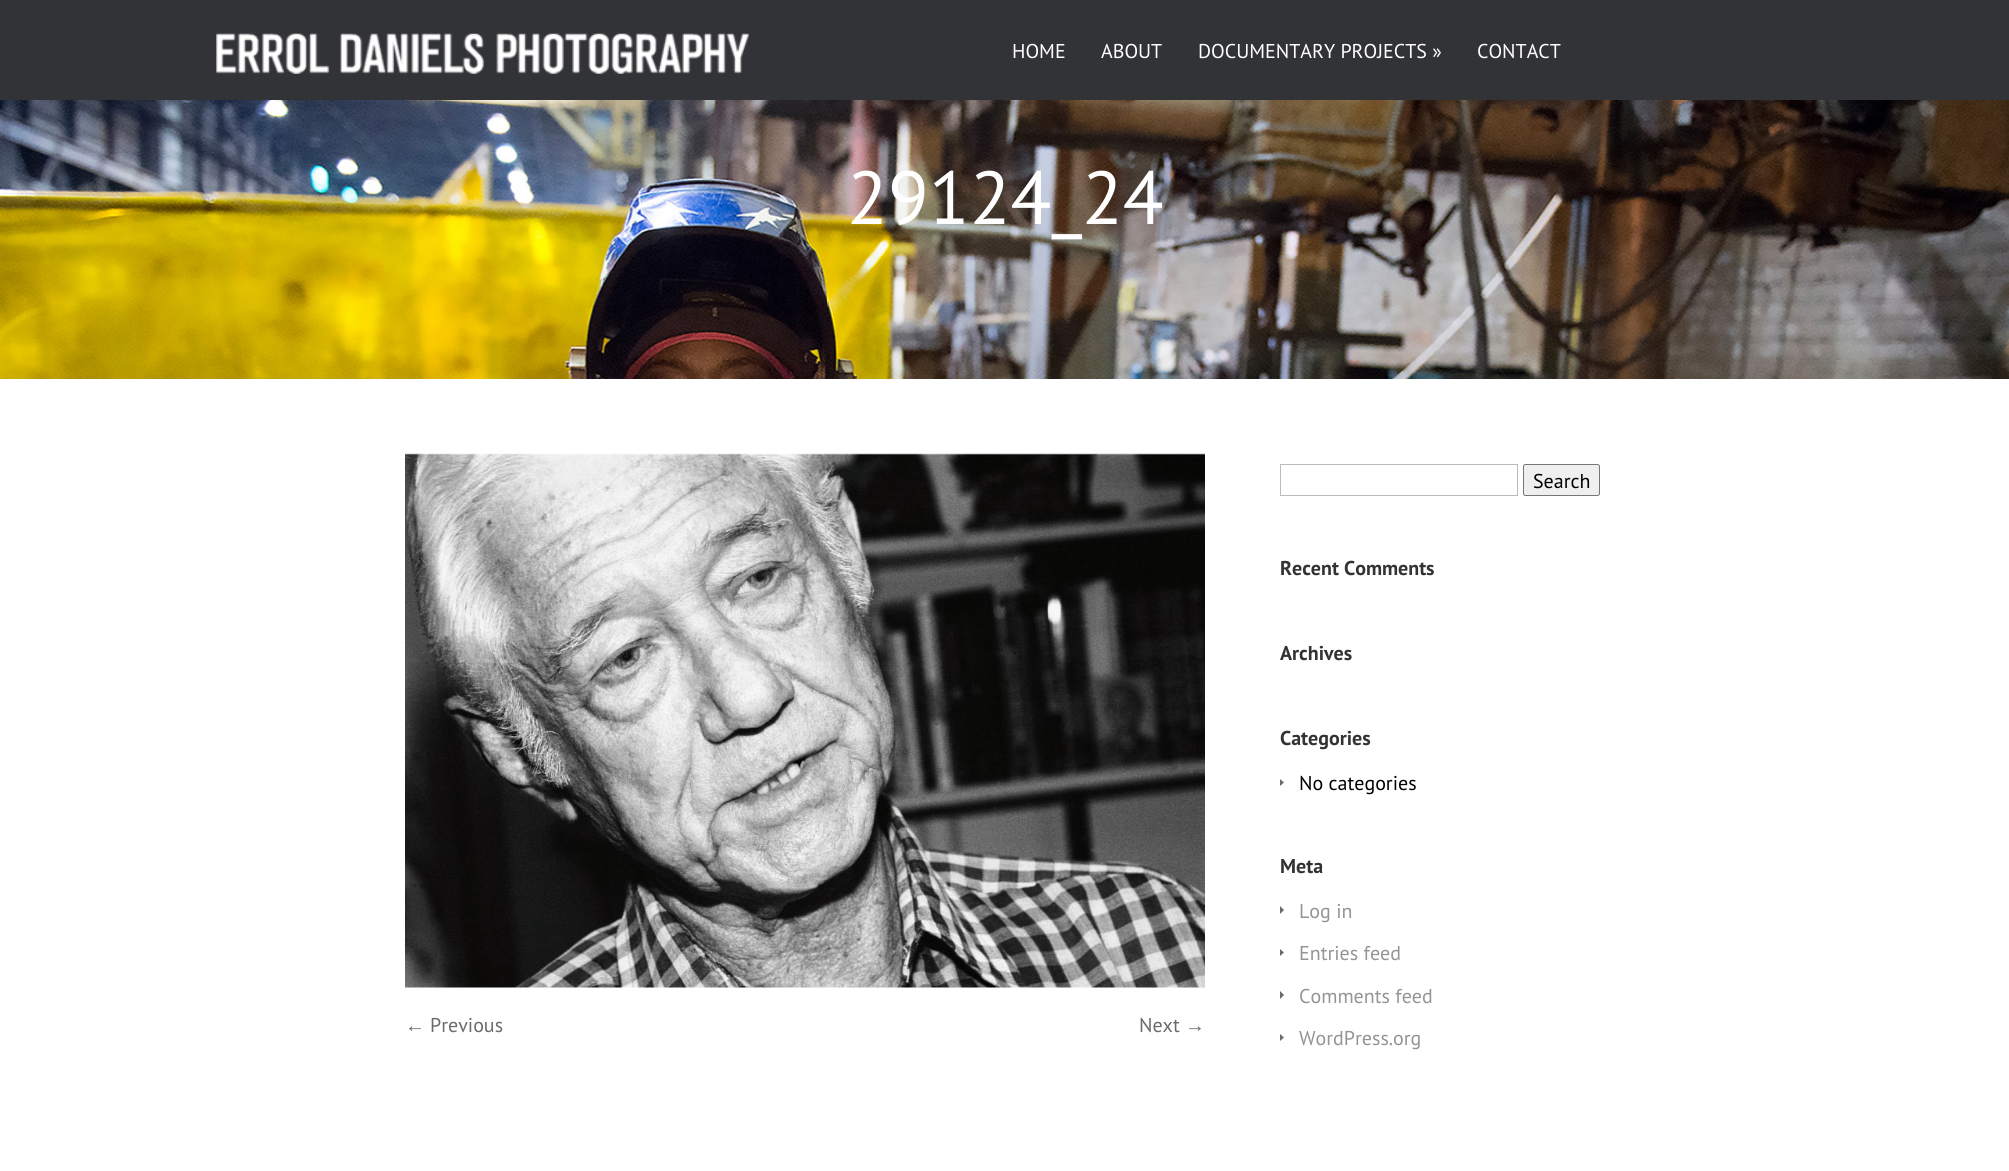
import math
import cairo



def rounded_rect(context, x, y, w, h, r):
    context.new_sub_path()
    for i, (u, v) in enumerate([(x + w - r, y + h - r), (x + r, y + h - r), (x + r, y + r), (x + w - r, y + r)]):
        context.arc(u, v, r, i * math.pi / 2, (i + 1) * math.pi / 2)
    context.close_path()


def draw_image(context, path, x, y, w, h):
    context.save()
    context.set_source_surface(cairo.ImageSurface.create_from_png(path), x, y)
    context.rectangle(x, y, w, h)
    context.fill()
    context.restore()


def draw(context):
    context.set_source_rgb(1, 1, 1)
    context.paint()
    context.set_source_rgb(50 / 255, 51 / 255, 55 / 255)
    context.rectangle(0, 0, 2009, 100)
    context.fill()
    draw_image(context, "images/1.png", 216, 33, 533, 41)
    draw_image(context, "images/2.png", 0, 100, 2009, 279)
    draw_image(context, "images/3.png", 405, 453, 800, 535)
    context.rectangle(1280.5, 464.5, 237, 31)
    context.set_source_rgb(187 / 255, 187 / 255, 187 / 255)
    context.set_line_width(1)
    context.stroke()
    context.set_source_rgb(239 / 255, 239 / 255, 239 / 255)
    rounded_rect(context, 1523.5, 464.5, 76, 31, 2)
    context.fill_preserve()
    context.set_source_rgb(118 / 255, 118 / 255, 118 / 255)
    context.stroke()
    context.set_source_rgb(107 / 255, 107 / 255, 107 / 255)
    context.new_path()
    context.move_to(1280, 786)
    context.line_to(1280, 779)
    context.line_to(1284, 782.5)
    context.close_path()
    context.fill()
    context.new_path()
    context.move_to(1280, 914)
    context.line_to(1280, 906)
    context.line_to(1284, 910)
    context.close_path()
    context.fill()
    context.new_path()
    context.move_to(1280, 956)
    context.line_to(1280, 949)
    context.line_to(1284, 952.5)
    context.close_path()
    context.fill()
    context.new_path()
    context.move_to(1280, 999)
    context.line_to(1280, 991)
    context.line_to(1284, 995)
    context.close_path()
    context.fill()
    context.new_path()
    context.move_to(1280, 1041)
    context.line_to(1280, 1034)
    context.line_to(1284, 1037.5)
    context.close_path()
    context.fill()
    context.select_font_face("PT Sans")
    context.set_font_size(20)
    context.set_source_rgb(1, 1, 1)
    context.move_to(1012, 58)
    context.show_text("HOME")
    context.move_to(1101, 58)
    context.show_text("ABOUT")
    context.move_to(1198, 58)
    context.show_text("DOCUMENTARY PROJECTS »")
    context.move_to(1477, 58)
    context.show_text("CONTACT")
    context.set_font_size(75)
    context.move_to(847, 224)
    context.show_text("29124_24")
    context.select_font_face("Liberation Sans")
    context.set_font_size(20)
    context.set_source_rgb(107 / 255, 107 / 255, 107 / 255)
    context.move_to(405, 1032)
    context.show_text("←")
    context.select_font_face("PT Sans")
    context.move_to(430, 1032)
    context.show_text("Previous")
    context.move_to(1139, 1032)
    context.show_text("Next")
    context.select_font_face("Liberation Sans")
    context.move_to(1185, 1032)
    context.show_text("→")
    context.select_font_face("PT Sans")
    context.set_source_rgb(0, 0, 0)
    context.move_to(1533, 488)
    context.show_text("Search")
    context.select_font_face("PT Sans", cairo.FontSlant.NORMAL, cairo.FontWeight.BOLD)
    context.set_source_rgb(51 / 255, 51 / 255, 51 / 255)
    context.move_to(1280, 575)
    context.show_text("Recent Comments")
    context.move_to(1280, 660)
    context.show_text("Archives")
    context.move_to(1280, 745)
    context.show_text("Categories")
    context.select_font_face("PT Sans")
    context.set_source_rgb(0, 0, 0)
    context.move_to(1299, 790)
    context.show_text("No categories")
    context.select_font_face("PT Sans", cairo.FontSlant.NORMAL, cairo.FontWeight.BOLD)
    context.set_source_rgb(51 / 255, 51 / 255, 51 / 255)
    context.move_to(1280, 873)
    context.show_text("Meta")
    context.select_font_face("PT Sans")
    context.set_source_rgb(149 / 255, 148 / 255, 148 / 255)
    context.move_to(1299, 918)
    context.show_text("Log in")
    context.move_to(1299, 960)
    context.show_text("Entries feed")
    context.move_to(1299, 1003)
    context.show_text("Comments feed")
    context.move_to(1299, 1045)
    context.show_text("WordPress.org")


surface = cairo.ImageSurface(cairo.Format.RGB24, 2009, 1171)
context = cairo.Context(surface)
options = cairo.FontOptions()
options.set_hint_metrics(cairo.HintMetrics.OFF)
options.set_hint_style(cairo.HintStyle.NONE)
context.set_font_options(options)
context.set_miter_limit(4)
draw(context)
surface.write_to_png("out.png")
